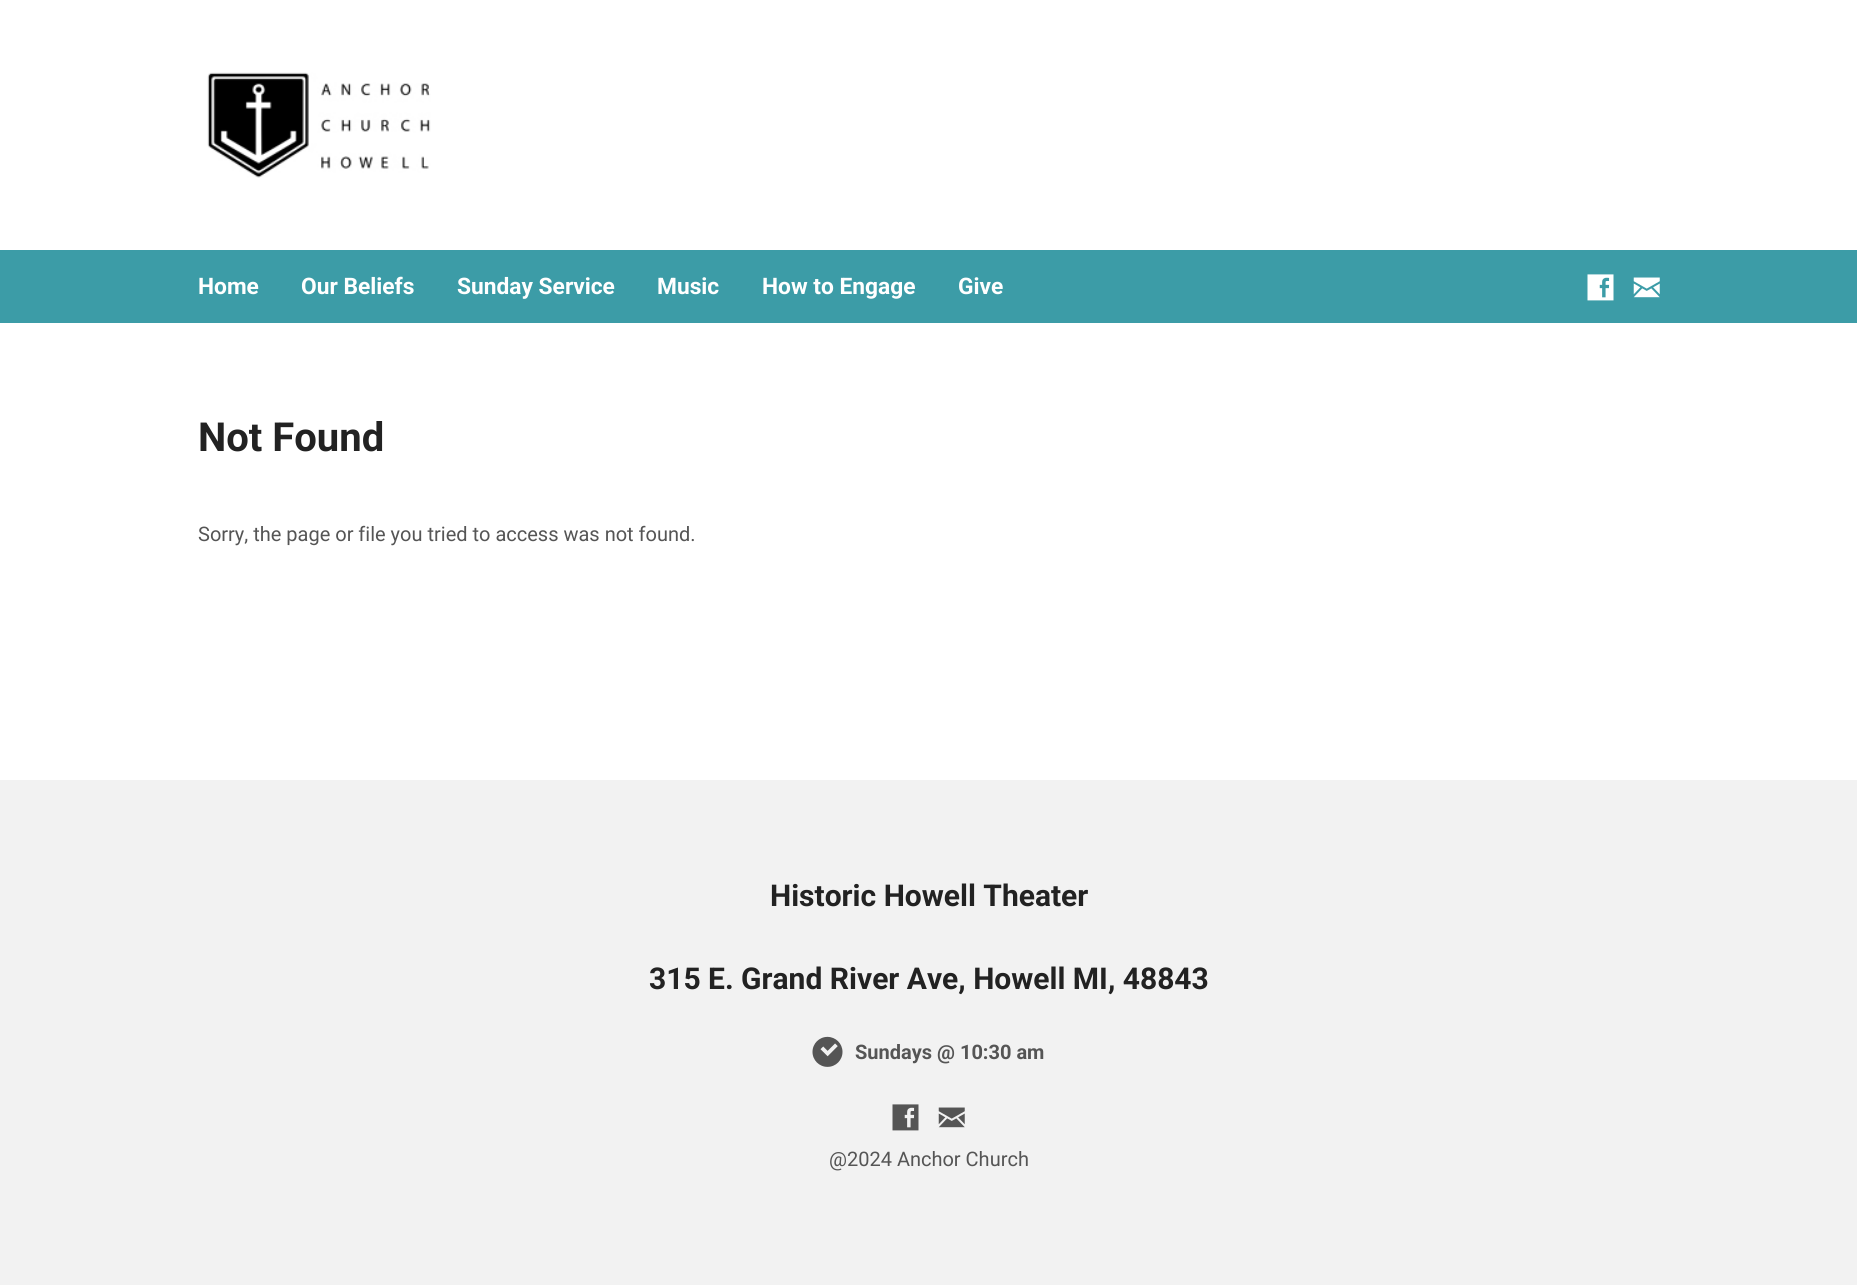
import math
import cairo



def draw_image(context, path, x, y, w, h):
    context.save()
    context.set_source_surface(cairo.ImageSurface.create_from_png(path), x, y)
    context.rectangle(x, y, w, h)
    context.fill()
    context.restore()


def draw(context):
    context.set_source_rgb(1, 1, 1)
    context.paint()
    draw_image(context, "images/1.png", 207, 72, 224, 106)
    context.set_source_rgb(60 / 255, 156 / 255, 167 / 255)
    context.rectangle(0, 250, 1857, 73)
    context.fill()
    draw_image(context, "images/2.png", 1587, 274, 27, 27)
    draw_image(context, "images/3.png", 1633, 277, 27, 21)
    context.set_source_rgb(242 / 255, 242 / 255, 242 / 255)
    context.rectangle(0, 780, 1857, 505)
    context.fill()
    draw_image(context, "images/4.png", 812, 1036, 31, 31)
    draw_image(context, "images/5.png", 892, 1104, 27, 27)
    draw_image(context, "images/6.png", 938, 1107, 27, 21)
    context.select_font_face("Roboto", cairo.FontSlant.NORMAL, cairo.FontWeight.BOLD)
    context.set_font_size(22.75)
    context.set_source_rgb(1, 1, 1)
    context.move_to(198, 294)
    context.show_text("Home")
    context.move_to(301, 294)
    context.show_text("Our Beliefs")
    context.move_to(457, 294)
    context.show_text("Sunday Service")
    context.move_to(657, 294)
    context.show_text("Music")
    context.move_to(762, 294)
    context.show_text("How to Engage")
    context.move_to(958, 294)
    context.show_text("Give")
    context.set_font_size(40)
    context.set_source_rgb(34 / 255, 34 / 255, 34 / 255)
    context.move_to(198, 451)
    context.show_text("Not Found")
    context.select_font_face("Roboto")
    context.set_font_size(20)
    context.set_source_rgb(85 / 255, 85 / 255, 85 / 255)
    context.move_to(198, 541)
    context.show_text("Sorry, the page or file you tried to access was not found.")
    context.select_font_face("Roboto", cairo.FontSlant.NORMAL, cairo.FontWeight.BOLD)
    context.set_font_size(30)
    context.set_source_rgb(34 / 255, 34 / 255, 34 / 255)
    context.move_to(770, 906)
    context.show_text("Historic Howell Theater")
    context.move_to(649, 989)
    context.show_text("315 E. Grand River Ave, Howell MI, 48843")
    context.set_font_size(20)
    context.set_source_rgb(85 / 255, 85 / 255, 85 / 255)
    context.move_to(855, 1059)
    context.show_text("Sundays @ 10:30 am")
    context.select_font_face("Roboto")
    context.move_to(829, 1166)
    context.show_text("@2024 Anchor Church")


surface = cairo.ImageSurface(cairo.Format.RGB24, 1857, 1285)
context = cairo.Context(surface)
options = cairo.FontOptions()
options.set_hint_metrics(cairo.HintMetrics.OFF)
options.set_hint_style(cairo.HintStyle.NONE)
context.set_font_options(options)
context.set_miter_limit(4)
draw(context)
surface.write_to_png("out.png")
